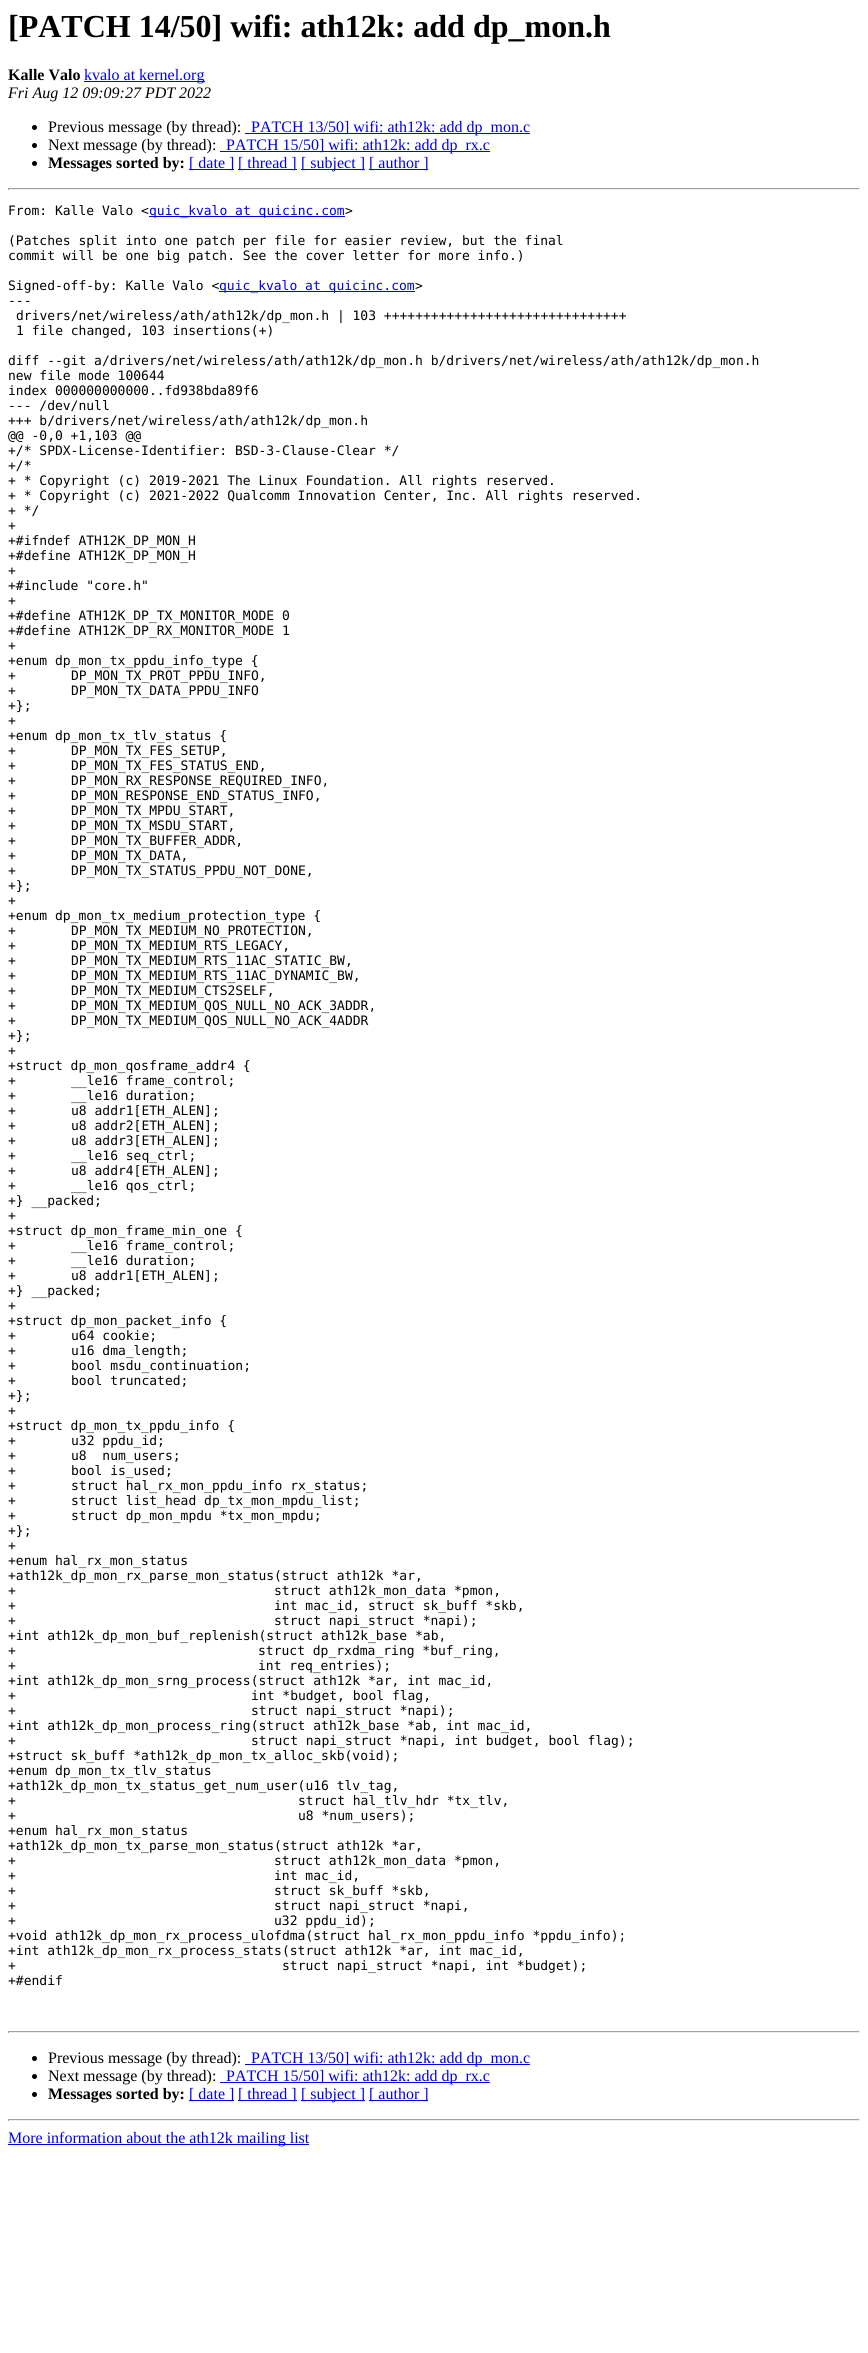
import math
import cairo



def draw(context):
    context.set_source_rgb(1, 1, 1)
    context.paint()
    context.set_source_rgb(0, 0, 238 / 255)
    context.rectangle(84, 81, 121, 1)
    context.fill()
    context.set_source_rgb(0, 0, 0)
    context.arc(34.5, 127.5, 2.5, 0, 2 * math.pi)
    context.fill()
    context.set_source_rgb(0, 0, 238 / 255)
    context.rectangle(245, 133, 285, 1)
    context.fill()
    context.set_source_rgb(0, 0, 0)
    context.arc(34.5, 145.5, 2.5, 0, 2 * math.pi)
    context.fill()
    context.set_source_rgb(0, 0, 238 / 255)
    context.rectangle(220, 151, 270, 1)
    context.fill()
    context.set_source_rgb(0, 0, 0)
    context.arc(34.5, 163.5, 2.5, 0, 2 * math.pi)
    context.fill()
    context.set_source_rgb(0, 0, 238 / 255)
    context.rectangle(189, 169, 45, 1)
    context.fill()
    context.rectangle(238, 169, 59, 1)
    context.fill()
    context.rectangle(301, 169, 64, 1)
    context.fill()
    context.rectangle(369, 169, 59, 1)
    context.fill()
    context.set_source_rgb(159 / 255, 159 / 255, 159 / 255)
    context.rectangle(8, 188, 852, 1)
    context.fill()
    context.set_source_rgb(238 / 255, 238 / 255, 238 / 255)
    context.rectangle(859, 188, 1, 2)
    context.fill()
    context.rectangle(8, 189, 852, 1)
    context.fill()
    context.set_source_rgb(159 / 255, 159 / 255, 159 / 255)
    context.rectangle(8, 188, 1, 2)
    context.fill()
    context.set_source_rgb(0, 0, 238 / 255)
    context.rectangle(149, 216, 196, 1)
    context.fill()
    context.rectangle(219, 291, 196, 1)
    context.fill()
    context.set_source_rgb(159 / 255, 159 / 255, 159 / 255)
    context.rectangle(8, 2031, 852, 1)
    context.fill()
    context.set_source_rgb(238 / 255, 238 / 255, 238 / 255)
    context.rectangle(859, 2031, 1, 2)
    context.fill()
    context.rectangle(8, 2032, 852, 1)
    context.fill()
    context.set_source_rgb(159 / 255, 159 / 255, 159 / 255)
    context.rectangle(8, 2031, 1, 2)
    context.fill()
    context.set_source_rgb(0, 0, 0)
    context.arc(34.5, 2058.5, 2.5, 0, 2 * math.pi)
    context.fill()
    context.set_source_rgb(0, 0, 238 / 255)
    context.rectangle(245, 2064, 285, 1)
    context.fill()
    context.set_source_rgb(0, 0, 0)
    context.arc(34.5, 2076.5, 2.5, 0, 2 * math.pi)
    context.fill()
    context.set_source_rgb(0, 0, 238 / 255)
    context.rectangle(220, 2082, 270, 1)
    context.fill()
    context.set_source_rgb(0, 0, 0)
    context.arc(34.5, 2094.5, 2.5, 0, 2 * math.pi)
    context.fill()
    context.set_source_rgb(0, 0, 238 / 255)
    context.rectangle(189, 2100, 45, 1)
    context.fill()
    context.rectangle(238, 2100, 59, 1)
    context.fill()
    context.rectangle(301, 2100, 64, 1)
    context.fill()
    context.rectangle(369, 2100, 59, 1)
    context.fill()
    context.set_source_rgb(159 / 255, 159 / 255, 159 / 255)
    context.rectangle(8, 2119, 852, 1)
    context.fill()
    context.set_source_rgb(238 / 255, 238 / 255, 238 / 255)
    context.rectangle(859, 2119, 1, 2)
    context.fill()
    context.rectangle(8, 2120, 852, 1)
    context.fill()
    context.set_source_rgb(159 / 255, 159 / 255, 159 / 255)
    context.rectangle(8, 2119, 1, 2)
    context.fill()
    context.set_source_rgb(0, 0, 238 / 255)
    context.rectangle(8, 2144, 301, 1)
    context.fill()
    context.select_font_face("Liberation Serif", cairo.FontSlant.NORMAL, cairo.FontWeight.BOLD)
    context.set_font_size(32)
    context.set_source_rgb(0, 0, 0)
    context.move_to(8, 37)
    context.show_text("[PATCH 14/50] wifi: ath12k: add dp_mon.h")
    context.set_font_size(16)
    context.move_to(8, 80)
    context.show_text("Kalle Valo")
    context.select_font_face("Liberation Serif")
    context.set_source_rgb(0, 0, 238 / 255)
    context.move_to(84, 80)
    context.show_text("kvalo at kernel.org")
    context.select_font_face("Liberation Serif", cairo.FontSlant.ITALIC)
    context.set_source_rgb(0, 0, 0)
    context.move_to(8, 98)
    context.show_text("Fri Aug 12 09:09:27 PDT 2022")
    context.select_font_face("Liberation Serif")
    context.move_to(48, 132)
    context.show_text("Previous message (by thread):")
    context.set_source_rgb(0, 0, 238 / 255)
    context.move_to(251, 132)
    context.show_text("PATCH 13/50] wifi: ath12k: add dp_mon.c")
    context.set_source_rgb(0, 0, 0)
    context.move_to(48, 150)
    context.show_text("Next message (by thread):")
    context.set_source_rgb(0, 0, 238 / 255)
    context.move_to(226, 150)
    context.show_text("PATCH 15/50] wifi: ath12k: add dp_rx.c")
    context.select_font_face("Liberation Serif", cairo.FontSlant.NORMAL, cairo.FontWeight.BOLD)
    context.set_source_rgb(0, 0, 0)
    context.move_to(48, 168)
    context.show_text("Messages sorted by:")
    context.select_font_face("Liberation Serif")
    context.set_source_rgb(0, 0, 238 / 255)
    context.move_to(189, 168)
    context.show_text("[ date ]")
    context.move_to(238, 168)
    context.show_text("[ thread ]")
    context.move_to(301, 168)
    context.show_text("[ subject ]")
    context.move_to(369, 168)
    context.show_text("[ author ]")
    context.select_font_face("DejaVu Sans Mono")
    context.set_font_size(13)
    context.set_source_rgb(0, 0, 0)
    context.move_to(8, 215)
    context.show_text("From: Kalle Valo <")
    context.set_source_rgb(0, 0, 238 / 255)
    context.move_to(149, 215)
    context.show_text("quic_kvalo at quicinc.com")
    context.set_source_rgb(0, 0, 0)
    context.move_to(345, 215)
    context.show_text(">")
    context.move_to(8, 245)
    context.show_text("(Patches split into one patch per file for easier review, but the final")
    context.move_to(8, 260)
    context.show_text("commit will be one big patch. See the cover letter for more info.)")
    context.move_to(8, 290)
    context.show_text("Signed-off-by: Kalle Valo <")
    context.set_source_rgb(0, 0, 238 / 255)
    context.move_to(219, 290)
    context.show_text("quic_kvalo at quicinc.com")
    context.set_source_rgb(0, 0, 0)
    context.move_to(415, 290)
    context.show_text(">")
    context.move_to(8, 305)
    context.show_text("---")
    context.move_to(16, 320)
    context.show_text("drivers/net/wireless/ath/ath12k/dp_mon.h | 103 +++++++++++++++++++++++++++++++")
    context.move_to(16, 335)
    context.show_text("1 file changed, 103 insertions(+)")
    context.move_to(8, 365)
    context.show_text("diff --git a/drivers/net/wireless/ath/ath12k/dp_mon.h b/drivers/net/wireless/ath/ath12k/dp_mon.h")
    context.move_to(8, 380)
    context.show_text("new file mode 100644")
    context.move_to(8, 395)
    context.show_text("index 000000000000..fd938bda89f6")
    context.move_to(8, 410)
    context.show_text("--- /dev/null")
    context.move_to(8, 425)
    context.show_text("+++ b/drivers/net/wireless/ath/ath12k/dp_mon.h")
    context.move_to(8, 440)
    context.show_text("@@ -0,0 +1,103 @@")
    context.move_to(8, 455)
    context.show_text("+/* SPDX-License-Identifier: BSD-3-Clause-Clear */")
    context.move_to(8, 470)
    context.show_text("+/*")
    context.move_to(8, 485)
    context.show_text("+ * Copyright (c) 2019-2021 The Linux Foundation. All rights reserved.")
    context.move_to(8, 500)
    context.show_text("+ * Copyright (c) 2021-2022 Qualcomm Innovation Center, Inc. All rights reserved.")
    context.move_to(8, 515)
    context.show_text("+ */")
    context.move_to(8, 530)
    context.show_text("+")
    context.move_to(8, 545)
    context.show_text("+#ifndef ATH12K_DP_MON_H")
    context.move_to(8, 560)
    context.show_text("+#define ATH12K_DP_MON_H")
    context.move_to(8, 575)
    context.show_text("+")
    context.move_to(8, 590)
    context.show_text("+#include \"core.h\"")
    context.move_to(8, 605)
    context.show_text("+")
    context.move_to(8, 620)
    context.show_text("+#define ATH12K_DP_TX_MONITOR_MODE 0")
    context.move_to(8, 635)
    context.show_text("+#define ATH12K_DP_RX_MONITOR_MODE 1")
    context.move_to(8, 650)
    context.show_text("+")
    context.move_to(8, 665)
    context.show_text("+enum dp_mon_tx_ppdu_info_type {")
    context.move_to(8, 680)
    context.show_text("+")
    context.move_to(71, 680)
    context.show_text("DP_MON_TX_PROT_PPDU_INFO,")
    context.move_to(8, 695)
    context.show_text("+")
    context.move_to(71, 695)
    context.show_text("DP_MON_TX_DATA_PPDU_INFO")
    context.move_to(8, 710)
    context.show_text("+};")
    context.move_to(8, 725)
    context.show_text("+")
    context.move_to(8, 740)
    context.show_text("+enum dp_mon_tx_tlv_status {")
    context.move_to(8, 755)
    context.show_text("+")
    context.move_to(71, 755)
    context.show_text("DP_MON_TX_FES_SETUP,")
    context.move_to(8, 770)
    context.show_text("+")
    context.move_to(71, 770)
    context.show_text("DP_MON_TX_FES_STATUS_END,")
    context.move_to(8, 785)
    context.show_text("+")
    context.move_to(71, 785)
    context.show_text("DP_MON_RX_RESPONSE_REQUIRED_INFO,")
    context.move_to(8, 800)
    context.show_text("+")
    context.move_to(71, 800)
    context.show_text("DP_MON_RESPONSE_END_STATUS_INFO,")
    context.move_to(8, 815)
    context.show_text("+")
    context.move_to(71, 815)
    context.show_text("DP_MON_TX_MPDU_START,")
    context.move_to(8, 830)
    context.show_text("+")
    context.move_to(71, 830)
    context.show_text("DP_MON_TX_MSDU_START,")
    context.move_to(8, 845)
    context.show_text("+")
    context.move_to(71, 845)
    context.show_text("DP_MON_TX_BUFFER_ADDR,")
    context.move_to(8, 860)
    context.show_text("+")
    context.move_to(71, 860)
    context.show_text("DP_MON_TX_DATA,")
    context.move_to(8, 875)
    context.show_text("+")
    context.move_to(71, 875)
    context.show_text("DP_MON_TX_STATUS_PPDU_NOT_DONE,")
    context.move_to(8, 890)
    context.show_text("+};")
    context.move_to(8, 905)
    context.show_text("+")
    context.move_to(8, 920)
    context.show_text("+enum dp_mon_tx_medium_protection_type {")
    context.move_to(8, 935)
    context.show_text("+")
    context.move_to(71, 935)
    context.show_text("DP_MON_TX_MEDIUM_NO_PROTECTION,")
    context.move_to(8, 950)
    context.show_text("+")
    context.move_to(71, 950)
    context.show_text("DP_MON_TX_MEDIUM_RTS_LEGACY,")
    context.move_to(8, 965)
    context.show_text("+")
    context.move_to(71, 965)
    context.show_text("DP_MON_TX_MEDIUM_RTS_11AC_STATIC_BW,")
    context.move_to(8, 980)
    context.show_text("+")
    context.move_to(71, 980)
    context.show_text("DP_MON_TX_MEDIUM_RTS_11AC_DYNAMIC_BW,")
    context.move_to(8, 995)
    context.show_text("+")
    context.move_to(71, 995)
    context.show_text("DP_MON_TX_MEDIUM_CTS2SELF,")
    context.move_to(8, 1010)
    context.show_text("+")
    context.move_to(71, 1010)
    context.show_text("DP_MON_TX_MEDIUM_QOS_NULL_NO_ACK_3ADDR,")
    context.move_to(8, 1025)
    context.show_text("+")
    context.move_to(71, 1025)
    context.show_text("DP_MON_TX_MEDIUM_QOS_NULL_NO_ACK_4ADDR")
    context.move_to(8, 1040)
    context.show_text("+};")
    context.move_to(8, 1055)
    context.show_text("+")
    context.move_to(8, 1070)
    context.show_text("+struct dp_mon_qosframe_addr4 {")
    context.move_to(8, 1085)
    context.show_text("+")
    context.move_to(71, 1085)
    context.show_text("__le16 frame_control;")
    context.move_to(8, 1100)
    context.show_text("+")
    context.move_to(71, 1100)
    context.show_text("__le16 duration;")
    context.move_to(8, 1115)
    context.show_text("+")
    context.move_to(71, 1115)
    context.show_text("u8 addr1[ETH_ALEN];")
    context.move_to(8, 1130)
    context.show_text("+")
    context.move_to(71, 1130)
    context.show_text("u8 addr2[ETH_ALEN];")
    context.move_to(8, 1145)
    context.show_text("+")
    context.move_to(71, 1145)
    context.show_text("u8 addr3[ETH_ALEN];")
    context.move_to(8, 1160)
    context.show_text("+")
    context.move_to(71, 1160)
    context.show_text("__le16 seq_ctrl;")
    context.move_to(8, 1175)
    context.show_text("+")
    context.move_to(71, 1175)
    context.show_text("u8 addr4[ETH_ALEN];")
    context.move_to(8, 1190)
    context.show_text("+")
    context.move_to(71, 1190)
    context.show_text("__le16 qos_ctrl;")
    context.move_to(8, 1205)
    context.show_text("+} __packed;")
    context.move_to(8, 1220)
    context.show_text("+")
    context.move_to(8, 1235)
    context.show_text("+struct dp_mon_frame_min_one {")
    context.move_to(8, 1250)
    context.show_text("+")
    context.move_to(71, 1250)
    context.show_text("__le16 frame_control;")
    context.move_to(8, 1265)
    context.show_text("+")
    context.move_to(71, 1265)
    context.show_text("__le16 duration;")
    context.move_to(8, 1280)
    context.show_text("+")
    context.move_to(71, 1280)
    context.show_text("u8 addr1[ETH_ALEN];")
    context.move_to(8, 1295)
    context.show_text("+} __packed;")
    context.move_to(8, 1310)
    context.show_text("+")
    context.move_to(8, 1325)
    context.show_text("+struct dp_mon_packet_info {")
    context.move_to(8, 1340)
    context.show_text("+")
    context.move_to(71, 1340)
    context.show_text("u64 cookie;")
    context.move_to(8, 1355)
    context.show_text("+")
    context.move_to(71, 1355)
    context.show_text("u16 dma_length;")
    context.move_to(8, 1370)
    context.show_text("+")
    context.move_to(71, 1370)
    context.show_text("bool msdu_continuation;")
    context.move_to(8, 1385)
    context.show_text("+")
    context.move_to(71, 1385)
    context.show_text("bool truncated;")
    context.move_to(8, 1400)
    context.show_text("+};")
    context.move_to(8, 1415)
    context.show_text("+")
    context.move_to(8, 1430)
    context.show_text("+struct dp_mon_tx_ppdu_info {")
    context.move_to(8, 1445)
    context.show_text("+")
    context.move_to(71, 1445)
    context.show_text("u32 ppdu_id;")
    context.move_to(8, 1460)
    context.show_text("+")
    context.move_to(71, 1460)
    context.show_text("u8  num_users;")
    context.move_to(8, 1475)
    context.show_text("+")
    context.move_to(71, 1475)
    context.show_text("bool is_used;")
    context.move_to(8, 1490)
    context.show_text("+")
    context.move_to(71, 1490)
    context.show_text("struct hal_rx_mon_ppdu_info rx_status;")
    context.move_to(8, 1505)
    context.show_text("+")
    context.move_to(71, 1505)
    context.show_text("struct list_head dp_tx_mon_mpdu_list;")
    context.move_to(8, 1520)
    context.show_text("+")
    context.move_to(71, 1520)
    context.show_text("struct dp_mon_mpdu *tx_mon_mpdu;")
    context.move_to(8, 1535)
    context.show_text("+};")
    context.move_to(8, 1550)
    context.show_text("+")
    context.move_to(8, 1565)
    context.show_text("+enum hal_rx_mon_status")
    context.move_to(8, 1580)
    context.show_text("+ath12k_dp_mon_rx_parse_mon_status(struct ath12k *ar,")
    context.move_to(8, 1595)
    context.show_text("+")
    context.move_to(274, 1595)
    context.show_text("struct ath12k_mon_data *pmon,")
    context.move_to(8, 1610)
    context.show_text("+")
    context.move_to(274, 1610)
    context.show_text("int mac_id, struct sk_buff *skb,")
    context.move_to(8, 1625)
    context.show_text("+")
    context.move_to(274, 1625)
    context.show_text("struct napi_struct *napi);")
    context.move_to(8, 1640)
    context.show_text("+int ath12k_dp_mon_buf_replenish(struct ath12k_base *ab,")
    context.move_to(8, 1655)
    context.show_text("+")
    context.move_to(258, 1655)
    context.show_text("struct dp_rxdma_ring *buf_ring,")
    context.move_to(8, 1670)
    context.show_text("+")
    context.move_to(258, 1670)
    context.show_text("int req_entries);")
    context.move_to(8, 1685)
    context.show_text("+int ath12k_dp_mon_srng_process(struct ath12k *ar, int mac_id,")
    context.move_to(8, 1700)
    context.show_text("+")
    context.move_to(251, 1700)
    context.show_text("int *budget, bool flag,")
    context.move_to(8, 1715)
    context.show_text("+")
    context.move_to(251, 1715)
    context.show_text("struct napi_struct *napi);")
    context.move_to(8, 1730)
    context.show_text("+int ath12k_dp_mon_process_ring(struct ath12k_base *ab, int mac_id,")
    context.move_to(8, 1745)
    context.show_text("+")
    context.move_to(251, 1745)
    context.show_text("struct napi_struct *napi, int budget, bool flag);")
    context.move_to(8, 1760)
    context.show_text("+struct sk_buff *ath12k_dp_mon_tx_alloc_skb(void);")
    context.move_to(8, 1775)
    context.show_text("+enum dp_mon_tx_tlv_status")
    context.move_to(8, 1790)
    context.show_text("+ath12k_dp_mon_tx_status_get_num_user(u16 tlv_tag,")
    context.move_to(8, 1805)
    context.show_text("+")
    context.move_to(298, 1805)
    context.show_text("struct hal_tlv_hdr *tx_tlv,")
    context.move_to(8, 1820)
    context.show_text("+")
    context.move_to(298, 1820)
    context.show_text("u8 *num_users);")
    context.move_to(8, 1835)
    context.show_text("+enum hal_rx_mon_status")
    context.move_to(8, 1850)
    context.show_text("+ath12k_dp_mon_tx_parse_mon_status(struct ath12k *ar,")
    context.move_to(8, 1865)
    context.show_text("+")
    context.move_to(274, 1865)
    context.show_text("struct ath12k_mon_data *pmon,")
    context.move_to(8, 1880)
    context.show_text("+")
    context.move_to(274, 1880)
    context.show_text("int mac_id,")
    context.move_to(8, 1895)
    context.show_text("+")
    context.move_to(274, 1895)
    context.show_text("struct sk_buff *skb,")
    context.move_to(8, 1910)
    context.show_text("+")
    context.move_to(274, 1910)
    context.show_text("struct napi_struct *napi,")
    context.move_to(8, 1925)
    context.show_text("+")
    context.move_to(274, 1925)
    context.show_text("u32 ppdu_id);")
    context.move_to(8, 1940)
    context.show_text("+void ath12k_dp_mon_rx_process_ulofdma(struct hal_rx_mon_ppdu_info *ppdu_info);")
    context.move_to(8, 1955)
    context.show_text("+int ath12k_dp_mon_rx_process_stats(struct ath12k *ar, int mac_id,")
    context.move_to(8, 1970)
    context.show_text("+")
    context.move_to(282, 1970)
    context.show_text("struct napi_struct *napi, int *budget);")
    context.move_to(8, 1985)
    context.show_text("+#endif")
    context.select_font_face("Liberation Serif")
    context.set_font_size(16)
    context.move_to(48, 2063)
    context.show_text("Previous message (by thread):")
    context.set_source_rgb(0, 0, 238 / 255)
    context.move_to(251, 2063)
    context.show_text("PATCH 13/50] wifi: ath12k: add dp_mon.c")
    context.set_source_rgb(0, 0, 0)
    context.move_to(48, 2081)
    context.show_text("Next message (by thread):")
    context.set_source_rgb(0, 0, 238 / 255)
    context.move_to(226, 2081)
    context.show_text("PATCH 15/50] wifi: ath12k: add dp_rx.c")
    context.select_font_face("Liberation Serif", cairo.FontSlant.NORMAL, cairo.FontWeight.BOLD)
    context.set_source_rgb(0, 0, 0)
    context.move_to(48, 2099)
    context.show_text("Messages sorted by:")
    context.select_font_face("Liberation Serif")
    context.set_source_rgb(0, 0, 238 / 255)
    context.move_to(189, 2099)
    context.show_text("[ date ]")
    context.move_to(238, 2099)
    context.show_text("[ thread ]")
    context.move_to(301, 2099)
    context.show_text("[ subject ]")
    context.move_to(369, 2099)
    context.show_text("[ author ]")
    context.move_to(8, 2143)
    context.show_text("More information about the ath12k mailing list")


surface = cairo.ImageSurface(cairo.Format.RGB24, 868, 2353)
context = cairo.Context(surface)
options = cairo.FontOptions()
options.set_hint_metrics(cairo.HintMetrics.OFF)
options.set_hint_style(cairo.HintStyle.NONE)
context.set_font_options(options)
context.set_miter_limit(4)
draw(context)
surface.write_to_png("out.png")
